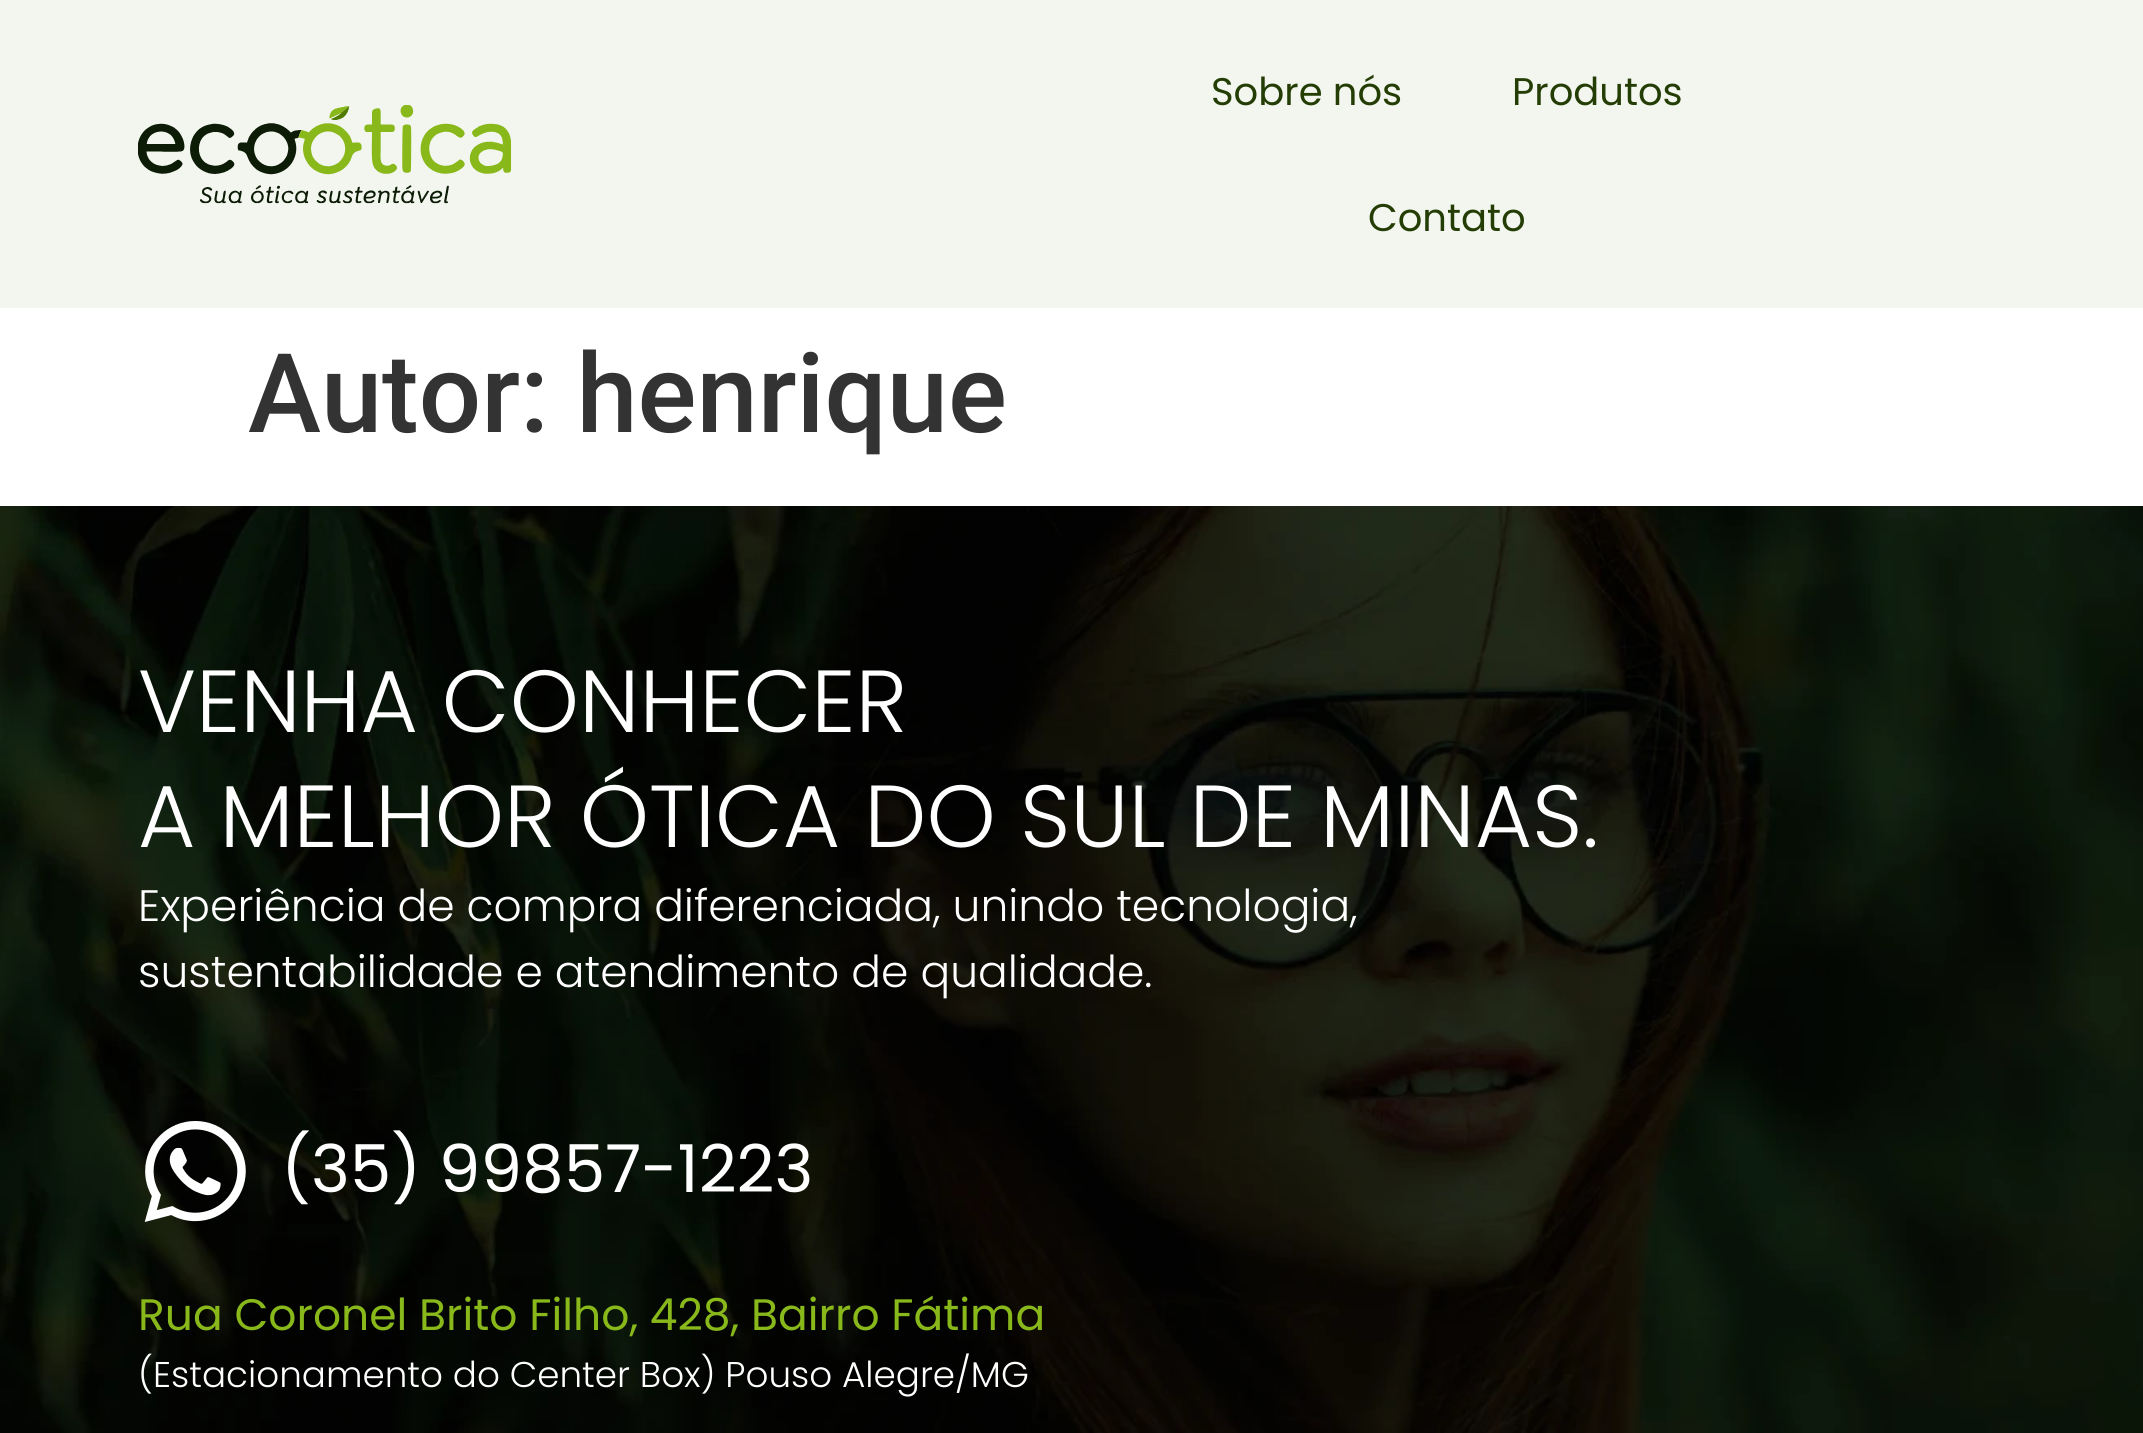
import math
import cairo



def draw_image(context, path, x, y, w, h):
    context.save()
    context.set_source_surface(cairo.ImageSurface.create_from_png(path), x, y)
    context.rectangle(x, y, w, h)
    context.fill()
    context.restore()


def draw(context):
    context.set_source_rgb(1, 1, 1)
    context.paint()
    context.set_source_rgb(243 / 255, 246 / 255, 239 / 255)
    context.rectangle(0, 0, 2143, 308)
    context.fill()
    draw_image(context, "images/1.png", 138, 105, 374, 99)
    draw_image(context, "images/2.png", 0, 506, 2143, 927)
    draw_image(context, "images/3.png", 144, 1121, 102, 101)
    context.select_font_face("Poppins")
    context.set_font_size(38.5)
    context.set_source_rgb(35 / 255, 61 / 255, 5 / 255)
    context.move_to(1211, 105)
    context.show_text("Sobre nós")
    context.move_to(1512, 105)
    context.show_text("Produtos")
    context.move_to(1368, 231)
    context.show_text("Contato")
    context.select_font_face("Roboto Medium")
    context.set_font_size(110)
    context.set_source_rgb(51 / 255, 51 / 255, 51 / 255)
    context.move_to(248, 432)
    context.show_text("Autor: henrique")
    context.select_font_face("Poppins Light")
    context.set_font_size(88)
    context.set_source_rgb(1, 1, 1)
    context.move_to(138, 732)
    context.show_text("VENHA CONHECER")
    context.move_to(138, 847)
    context.show_text("A MELHOR ÓTICA DO SUL DE MINAS.")
    context.set_font_size(44)
    context.move_to(138, 921)
    context.show_text("Experiência de compra diferenciada, unindo tecnologia,")
    context.move_to(138, 987)
    context.show_text("sustentabilidade e atendimento de qualidade.")
    context.select_font_face("Poppins")
    context.set_font_size(66)
    context.move_to(281, 1192)
    context.show_text("(35) 99857-1223")
    context.set_font_size(44)
    context.set_source_rgb(137 / 255, 184 / 255, 27 / 255)
    context.move_to(138, 1330)
    context.show_text("Rua Coronel Brito Filho, 428, Bairro Fátima")
    context.select_font_face("Poppins Light")
    context.set_font_size(35.75)
    context.set_source_rgb(1, 1, 1)
    context.move_to(138, 1387)
    context.show_text("(Estacionamento do Center Box) Pouso Alegre/MG")


surface = cairo.ImageSurface(cairo.Format.RGB24, 2143, 1433)
context = cairo.Context(surface)
options = cairo.FontOptions()
options.set_hint_metrics(cairo.HintMetrics.OFF)
options.set_hint_style(cairo.HintStyle.NONE)
context.set_font_options(options)
context.set_miter_limit(4)
draw(context)
surface.write_to_png("out.png")
